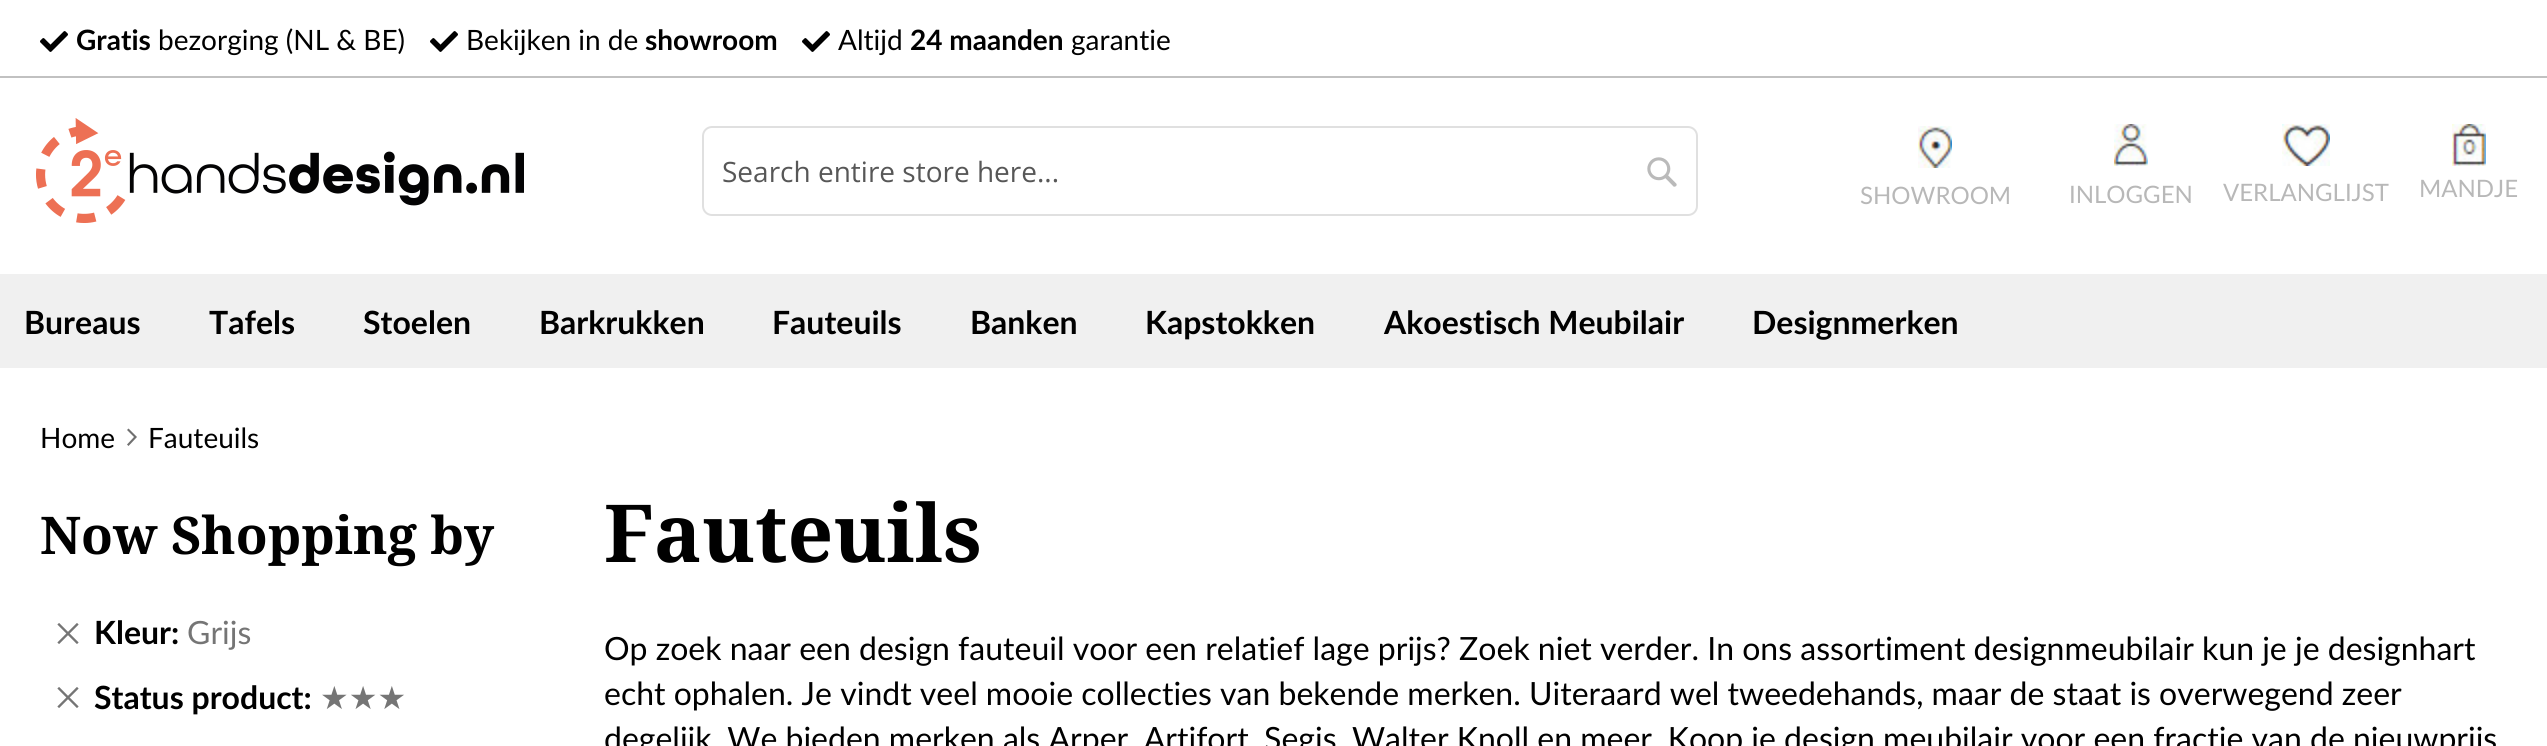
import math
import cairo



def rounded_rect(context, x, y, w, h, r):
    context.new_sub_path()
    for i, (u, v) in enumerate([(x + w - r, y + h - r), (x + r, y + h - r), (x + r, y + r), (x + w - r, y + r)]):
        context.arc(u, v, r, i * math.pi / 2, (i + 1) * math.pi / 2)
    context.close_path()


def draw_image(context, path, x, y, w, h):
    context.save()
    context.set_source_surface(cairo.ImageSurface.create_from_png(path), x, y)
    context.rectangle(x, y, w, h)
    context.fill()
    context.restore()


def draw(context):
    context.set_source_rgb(1, 1, 1)
    context.paint()
    context.set_source_rgb(193 / 255, 193 / 255, 193 / 255)
    context.rectangle(0, 76, 2547, 2)
    context.fill()
    draw_image(context, "images/1.png", 40, 31, 28, 21)
    draw_image(context, "images/1.png", 430, 31, 28, 21)
    draw_image(context, "images/1.png", 802, 31, 28, 21)
    draw_image(context, "images/2.png", 36, 118, 488, 105)
    rounded_rect(context, 703, 127, 994, 88, 9)
    context.set_source_rgb(224 / 255, 224 / 255, 224 / 255)
    context.stroke()
    draw_image(context, "images/3.png", 1647, 157, 30, 30)
    draw_image(context, "images/4.png", 1918, 126, 34, 42)
    draw_image(context, "images/5.png", 2114, 124, 34, 42)
    draw_image(context, "images/6.png", 2282, 124, 48, 42)
    draw_image(context, "images/7.png", 2452, 124, 34, 42)
    context.set_source_rgb(240 / 255, 240 / 255, 240 / 255)
    context.rectangle(0, 274, 2547, 94)
    context.fill()
    context.set_source_rgb(112 / 255, 112 / 255, 112 / 255)
    context.new_path()
    context.move_to(137, 437)
    context.line_to(128.5, 428.5)
    context.line_to(127, 430)
    context.line_to(134, 437)
    context.line_to(127, 444.5)
    context.line_to(128.5, 446)
    context.close_path()
    context.fill()
    draw_image(context, "images/8.png", 57, 623, 22, 21)
    draw_image(context, "images/8.png", 57, 687, 22, 21)
    context.select_font_face("Lato", cairo.FontSlant.NORMAL, cairo.FontWeight.BOLD)
    context.set_font_size(28)
    context.set_source_rgb(0, 0, 0)
    context.move_to(76, 50)
    context.show_text("Gratis")
    context.select_font_face("Lato")
    context.move_to(158, 50)
    context.show_text("bezorging (NL & BE)")
    context.move_to(466, 50)
    context.show_text("Bekijken in de")
    context.select_font_face("Lato", cairo.FontSlant.NORMAL, cairo.FontWeight.BOLD)
    context.move_to(645, 50)
    context.show_text("showroom")
    context.select_font_face("Lato")
    context.move_to(838, 50)
    context.show_text("Altijd")
    context.select_font_face("Lato", cairo.FontSlant.NORMAL, cairo.FontWeight.BOLD)
    context.move_to(910, 50)
    context.show_text("24 maanden")
    context.select_font_face("Lato")
    context.move_to(1071, 50)
    context.show_text("garantie")
    context.select_font_face("Open Sans")
    context.set_source_rgb(87 / 255, 87 / 255, 87 / 255)
    context.move_to(722, 182)
    context.show_text("Search entire store here...")
    context.select_font_face("Lato")
    context.set_font_size(24)
    context.set_source_rgb(184 / 255, 184 / 255, 184 / 255)
    context.move_to(1860, 204)
    context.show_text("SHOWROOM")
    context.move_to(2069, 203)
    context.show_text("INLOGGEN")
    context.move_to(2223, 201)
    context.show_text("VERLANGLIJST")
    context.move_to(2419, 197)
    context.show_text("MANDJE")
    context.select_font_face("Lato", cairo.FontSlant.NORMAL, cairo.FontWeight.BOLD)
    context.set_font_size(32)
    context.set_source_rgb(0, 0, 0)
    context.move_to(24, 334)
    context.show_text("Bureaus")
    context.move_to(209, 334)
    context.show_text("Tafels")
    context.move_to(363, 334)
    context.show_text("Stoelen")
    context.move_to(539, 334)
    context.show_text("Barkrukken")
    context.move_to(772, 334)
    context.show_text("Fauteuils")
    context.move_to(970, 334)
    context.show_text("Banken")
    context.move_to(1145, 334)
    context.show_text("Kapstokken")
    context.move_to(1384, 334)
    context.show_text("Akoestisch Meubilair")
    context.move_to(1752, 334)
    context.show_text("Designmerken")
    context.select_font_face("Lato")
    context.set_font_size(28)
    context.move_to(40, 448)
    context.show_text("Home")
    context.move_to(148, 448)
    context.show_text("Fauteuils")
    context.select_font_face("Noto Serif", cairo.FontSlant.NORMAL, cairo.FontWeight.BOLD)
    context.set_font_size(52)
    context.move_to(40, 554)
    context.show_text("Now Shopping by")
    context.select_font_face("Lato", cairo.FontSlant.NORMAL, cairo.FontWeight.BOLD)
    context.set_font_size(32)
    context.move_to(94, 644)
    context.show_text("Kleur:")
    context.select_font_face("Lato")
    context.set_source_rgb(117 / 255, 117 / 255, 117 / 255)
    context.move_to(187, 644)
    context.show_text("Grijs")
    context.select_font_face("Lato", cairo.FontSlant.NORMAL, cairo.FontWeight.BOLD)
    context.set_source_rgb(0, 0, 0)
    context.move_to(94, 709)
    context.show_text("Status product:")
    context.select_font_face("DejaVu Sans")
    context.set_source_rgb(117 / 255, 117 / 255, 117 / 255)
    context.move_to(320, 709)
    context.show_text("★★★")
    context.select_font_face("Noto Serif", cairo.FontSlant.NORMAL, cairo.FontWeight.BOLD)
    context.set_font_size(80)
    context.set_source_rgb(0, 0, 0)
    context.move_to(604, 562)
    context.show_text("Fauteuils")
    context.select_font_face("Lato")
    context.set_font_size(32)
    context.move_to(604, 660)
    context.show_text("Op zoek naar een design fauteuil voor een relatief lage prijs? Zoek niet verder. In ons assortiment designmeubilair kun je je designhart")
    context.move_to(604, 705)
    context.show_text("echt ophalen. Je vindt veel mooie collecties van bekende merken. Uiteraard wel tweedehands, maar de staat is overwegend zeer")
    context.move_to(604, 750)
    context.show_text("degelijk. We bieden merken als Arper, Artifort, Segis, Walter Knoll en meer. Koop je design meubilair voor een fractie van de nieuwprijs")


surface = cairo.ImageSurface(cairo.Format.RGB24, 2547, 746)
context = cairo.Context(surface)
options = cairo.FontOptions()
options.set_hint_metrics(cairo.HintMetrics.OFF)
options.set_hint_style(cairo.HintStyle.NONE)
context.set_font_options(options)
context.set_miter_limit(4)
draw(context)
surface.write_to_png("out.png")
